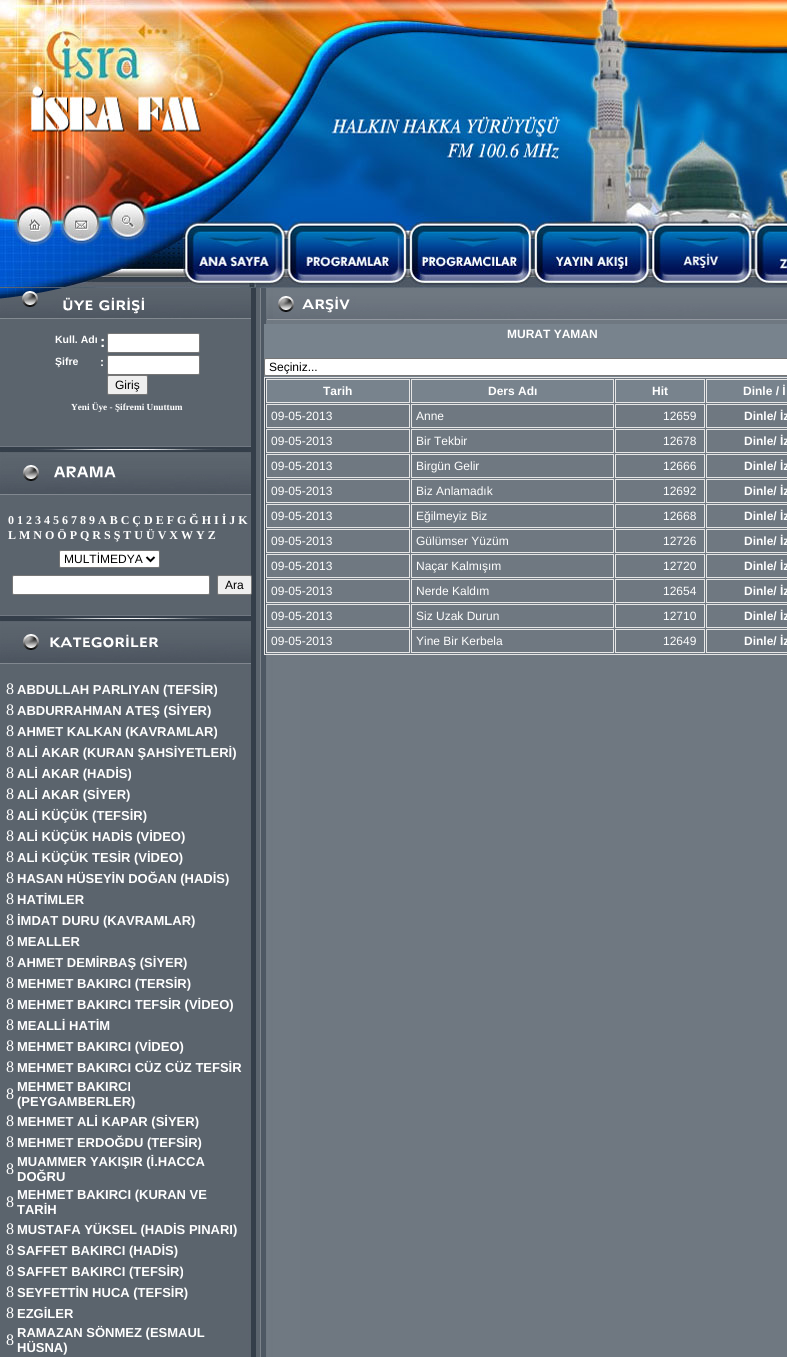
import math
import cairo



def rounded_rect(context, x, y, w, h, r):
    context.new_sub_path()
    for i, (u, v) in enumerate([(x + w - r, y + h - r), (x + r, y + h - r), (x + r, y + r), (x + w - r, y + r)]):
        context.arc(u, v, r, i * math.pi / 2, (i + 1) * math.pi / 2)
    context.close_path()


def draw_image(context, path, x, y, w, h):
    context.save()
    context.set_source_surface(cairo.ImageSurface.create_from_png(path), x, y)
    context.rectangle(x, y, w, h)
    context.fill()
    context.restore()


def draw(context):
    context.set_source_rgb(1, 1, 1)
    context.paint()
    draw_image(context, "images/1.png", 0, 0, 787, 288)
    draw_image(context, "images/2.png", 0, 288, 260, 1069)
    draw_image(context, "images/3.png", 0, 288, 251, 31)
    context.set_source_rgb(1, 1, 1)
    rounded_rect(context, 107.5, 333.5, 92, 19, 1.5)
    context.fill_preserve()
    context.set_source_rgb(118 / 255, 118 / 255, 118 / 255)
    context.set_line_width(1)
    context.stroke()
    context.set_source_rgb(1, 1, 1)
    rounded_rect(context, 107.5, 355.5, 92, 19, 1.5)
    context.fill_preserve()
    context.set_source_rgb(118 / 255, 118 / 255, 118 / 255)
    context.stroke()
    context.set_source_rgb(239 / 255, 239 / 255, 239 / 255)
    rounded_rect(context, 107.5, 375.5, 40, 19, 1.5)
    context.fill_preserve()
    context.set_source_rgb(118 / 255, 118 / 255, 118 / 255)
    context.stroke()
    draw_image(context, "images/4.png", 0, 446, 251, 49)
    context.set_source_rgb(1, 1, 1)
    rounded_rect(context, 59.5, 550.5, 100, 17, 1.5)
    context.fill_preserve()
    context.set_source_rgb(118 / 255, 118 / 255, 118 / 255)
    context.stroke()
    context.new_path()
    context.move_to(146.5, 557)
    context.line_to(150.5, 561)
    context.line_to(154.5, 557)
    context.set_source_rgb(0, 0, 0)
    context.set_line_width(2)
    context.stroke()
    context.set_source_rgb(1, 1, 1)
    rounded_rect(context, 12.5, 575.5, 197, 19, 1.5)
    context.fill_preserve()
    context.set_source_rgb(118 / 255, 118 / 255, 118 / 255)
    context.set_line_width(1)
    context.stroke()
    context.set_source_rgb(239 / 255, 239 / 255, 239 / 255)
    rounded_rect(context, 217.5, 575.5, 34, 19, 1.5)
    context.fill_preserve()
    context.set_source_rgb(118 / 255, 118 / 255, 118 / 255)
    context.stroke()
    draw_image(context, "images/5.png", 0, 615, 251, 49)
    draw_image(context, "images/6.png", 260, 288, 527, 1069)
    draw_image(context, "images/7.png", 266, 296, 521, 24)
    context.set_source_rgb(120 / 255, 131 / 255, 141 / 255)
    context.rectangle(264, 324, 523, 53)
    context.fill()
    context.set_source_rgb(1, 1, 1)
    rounded_rect(context, 264.5, 358.5, 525, 17, 1.5)
    context.fill_preserve()
    context.set_source_rgb(118 / 255, 118 / 255, 118 / 255)
    context.stroke()
    context.rectangle(264.5, 377.5, 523, 277)
    context.set_source_rgb(230 / 255, 230 / 255, 230 / 255)
    context.stroke()
    context.set_source_rgb(120 / 255, 131 / 255, 141 / 255)
    context.rectangle(266.5, 379.5, 143, 23)
    context.fill_preserve()
    context.set_source_rgb(230 / 255, 230 / 255, 230 / 255)
    context.stroke()
    context.set_source_rgb(120 / 255, 131 / 255, 141 / 255)
    context.rectangle(411.5, 379.5, 202, 23)
    context.fill_preserve()
    context.set_source_rgb(230 / 255, 230 / 255, 230 / 255)
    context.stroke()
    context.set_source_rgb(120 / 255, 131 / 255, 141 / 255)
    context.rectangle(615.5, 379.5, 89, 23)
    context.fill_preserve()
    context.set_source_rgb(230 / 255, 230 / 255, 230 / 255)
    context.stroke()
    context.set_source_rgb(120 / 255, 131 / 255, 141 / 255)
    context.rectangle(706.5, 379.5, 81, 23)
    context.fill_preserve()
    context.set_source_rgb(230 / 255, 230 / 255, 230 / 255)
    context.stroke()
    context.rectangle(266.5, 404.5, 143, 23)
    context.stroke()
    context.rectangle(411.5, 404.5, 202, 23)
    context.stroke()
    context.rectangle(615.5, 404.5, 89, 23)
    context.stroke()
    context.rectangle(706.5, 404.5, 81, 23)
    context.stroke()
    context.rectangle(266.5, 429.5, 143, 23)
    context.stroke()
    context.rectangle(411.5, 429.5, 202, 23)
    context.stroke()
    context.rectangle(615.5, 429.5, 89, 23)
    context.stroke()
    context.rectangle(706.5, 429.5, 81, 23)
    context.stroke()
    context.rectangle(266.5, 454.5, 143, 23)
    context.stroke()
    context.rectangle(411.5, 454.5, 202, 23)
    context.stroke()
    context.rectangle(615.5, 454.5, 89, 23)
    context.stroke()
    context.rectangle(706.5, 454.5, 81, 23)
    context.stroke()
    context.rectangle(266.5, 479.5, 143, 23)
    context.stroke()
    context.rectangle(411.5, 479.5, 202, 23)
    context.stroke()
    context.rectangle(615.5, 479.5, 89, 23)
    context.stroke()
    context.rectangle(706.5, 479.5, 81, 23)
    context.stroke()
    context.rectangle(266.5, 504.5, 143, 23)
    context.stroke()
    context.rectangle(411.5, 504.5, 202, 23)
    context.stroke()
    context.rectangle(615.5, 504.5, 89, 23)
    context.stroke()
    context.rectangle(706.5, 504.5, 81, 23)
    context.stroke()
    context.rectangle(266.5, 529.5, 143, 23)
    context.stroke()
    context.rectangle(411.5, 529.5, 202, 23)
    context.stroke()
    context.rectangle(615.5, 529.5, 89, 23)
    context.stroke()
    context.rectangle(706.5, 529.5, 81, 23)
    context.stroke()
    context.rectangle(266.5, 554.5, 143, 23)
    context.stroke()
    context.rectangle(411.5, 554.5, 202, 23)
    context.stroke()
    context.rectangle(615.5, 554.5, 89, 23)
    context.stroke()
    context.rectangle(706.5, 554.5, 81, 23)
    context.stroke()
    context.rectangle(266.5, 579.5, 143, 23)
    context.stroke()
    context.rectangle(411.5, 579.5, 202, 23)
    context.stroke()
    context.rectangle(615.5, 579.5, 89, 23)
    context.stroke()
    context.rectangle(706.5, 579.5, 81, 23)
    context.stroke()
    context.rectangle(266.5, 604.5, 143, 23)
    context.stroke()
    context.rectangle(411.5, 604.5, 202, 23)
    context.stroke()
    context.rectangle(615.5, 604.5, 89, 23)
    context.stroke()
    context.rectangle(706.5, 604.5, 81, 23)
    context.stroke()
    context.rectangle(266.5, 629.5, 143, 23)
    context.stroke()
    context.rectangle(411.5, 629.5, 202, 23)
    context.stroke()
    context.rectangle(615.5, 629.5, 89, 23)
    context.stroke()
    context.rectangle(706.5, 629.5, 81, 23)
    context.stroke()
    context.select_font_face("Liberation Sans", cairo.FontSlant.NORMAL, cairo.FontWeight.BOLD)
    context.set_font_size(10.5)
    context.set_source_rgb(1, 1, 1)
    context.move_to(55, 343)
    context.show_text("Kull. Adı")
    context.set_font_size(16)
    context.move_to(100, 347)
    context.show_text(":")
    context.set_font_size(10.5)
    context.move_to(55, 365)
    context.show_text("Şifre")
    context.set_font_size(12)
    context.move_to(100, 366)
    context.show_text(":")
    context.select_font_face("Liberation Sans")
    context.set_source_rgb(0, 0, 0)
    context.move_to(115, 389)
    context.show_text("Giriş")
    context.select_font_face("Liberation Serif", cairo.FontSlant.NORMAL, cairo.FontWeight.BOLD)
    context.set_font_size(9.25)
    context.set_source_rgb(1, 1, 1)
    context.move_to(71, 410)
    context.show_text("Yeni Üye - Şifremi Unuttum")
    context.set_font_size(12)
    context.move_to(8, 524)
    context.show_text("0 1 2 3 4 5 6 7 8 9 A B C Ç D E F G Ğ H I İ J K")
    context.move_to(8, 539)
    context.show_text("L M N O Ö P Q R S Ş T U Ü V X W Y Z")
    context.select_font_face("Liberation Sans")
    context.set_source_rgb(0, 0, 0)
    context.move_to(64, 563)
    context.show_text("MULTİMEDYA")
    context.move_to(225, 589)
    context.show_text("Ara")
    context.select_font_face("Liberation Serif")
    context.set_font_size(16)
    context.set_source_rgb(1, 1, 1)
    context.move_to(6, 694)
    context.show_text("8")
    context.select_font_face("Liberation Sans", cairo.FontSlant.NORMAL, cairo.FontWeight.BOLD)
    context.set_font_size(13)
    context.move_to(17, 694)
    context.show_text("ABDULLAH PARLIYAN (TEFSİR)")
    context.select_font_face("Liberation Serif")
    context.set_font_size(16)
    context.move_to(6, 715)
    context.show_text("8")
    context.select_font_face("Liberation Sans", cairo.FontSlant.NORMAL, cairo.FontWeight.BOLD)
    context.set_font_size(13)
    context.move_to(17, 715)
    context.show_text("ABDURRAHMAN ATEŞ (SİYER)")
    context.select_font_face("Liberation Serif")
    context.set_font_size(16)
    context.move_to(6, 736)
    context.show_text("8")
    context.select_font_face("Liberation Sans", cairo.FontSlant.NORMAL, cairo.FontWeight.BOLD)
    context.set_font_size(13)
    context.move_to(17, 736)
    context.show_text("AHMET KALKAN (KAVRAMLAR)")
    context.select_font_face("Liberation Serif")
    context.set_font_size(16)
    context.move_to(6, 757)
    context.show_text("8")
    context.select_font_face("Liberation Sans", cairo.FontSlant.NORMAL, cairo.FontWeight.BOLD)
    context.set_font_size(13)
    context.move_to(17, 757)
    context.show_text("ALİ AKAR (KURAN ŞAHSİYETLERİ)")
    context.select_font_face("Liberation Serif")
    context.set_font_size(16)
    context.move_to(6, 778)
    context.show_text("8")
    context.select_font_face("Liberation Sans", cairo.FontSlant.NORMAL, cairo.FontWeight.BOLD)
    context.set_font_size(13)
    context.move_to(17, 778)
    context.show_text("ALİ AKAR (HADİS)")
    context.select_font_face("Liberation Serif")
    context.set_font_size(16)
    context.move_to(6, 799)
    context.show_text("8")
    context.select_font_face("Liberation Sans", cairo.FontSlant.NORMAL, cairo.FontWeight.BOLD)
    context.set_font_size(13)
    context.move_to(17, 799)
    context.show_text("ALİ AKAR (SİYER)")
    context.select_font_face("Liberation Serif")
    context.set_font_size(16)
    context.move_to(6, 820)
    context.show_text("8")
    context.select_font_face("Liberation Sans", cairo.FontSlant.NORMAL, cairo.FontWeight.BOLD)
    context.set_font_size(13)
    context.move_to(17, 820)
    context.show_text("ALİ KÜÇÜK (TEFSİR)")
    context.select_font_face("Liberation Serif")
    context.set_font_size(16)
    context.move_to(6, 841)
    context.show_text("8")
    context.select_font_face("Liberation Sans", cairo.FontSlant.NORMAL, cairo.FontWeight.BOLD)
    context.set_font_size(13)
    context.move_to(17, 841)
    context.show_text("ALİ KÜÇÜK HADİS (VİDEO)")
    context.select_font_face("Liberation Serif")
    context.set_font_size(16)
    context.move_to(6, 862)
    context.show_text("8")
    context.select_font_face("Liberation Sans", cairo.FontSlant.NORMAL, cairo.FontWeight.BOLD)
    context.set_font_size(13)
    context.move_to(17, 862)
    context.show_text("ALİ KÜÇÜK TESİR (VİDEO)")
    context.select_font_face("Liberation Serif")
    context.set_font_size(16)
    context.move_to(6, 883)
    context.show_text("8")
    context.select_font_face("Liberation Sans", cairo.FontSlant.NORMAL, cairo.FontWeight.BOLD)
    context.set_font_size(13)
    context.move_to(17, 883)
    context.show_text("HASAN HÜSEYİN DOĞAN (HADİS)")
    context.select_font_face("Liberation Serif")
    context.set_font_size(16)
    context.move_to(6, 904)
    context.show_text("8")
    context.select_font_face("Liberation Sans", cairo.FontSlant.NORMAL, cairo.FontWeight.BOLD)
    context.set_font_size(13)
    context.move_to(17, 904)
    context.show_text("HATİMLER")
    context.select_font_face("Liberation Serif")
    context.set_font_size(16)
    context.move_to(6, 925)
    context.show_text("8")
    context.select_font_face("Liberation Sans", cairo.FontSlant.NORMAL, cairo.FontWeight.BOLD)
    context.set_font_size(13)
    context.move_to(17, 925)
    context.show_text("İMDAT DURU (KAVRAMLAR)")
    context.select_font_face("Liberation Serif")
    context.set_font_size(16)
    context.move_to(6, 946)
    context.show_text("8")
    context.select_font_face("Liberation Sans", cairo.FontSlant.NORMAL, cairo.FontWeight.BOLD)
    context.set_font_size(13)
    context.move_to(17, 946)
    context.show_text("MEALLER")
    context.select_font_face("Liberation Serif")
    context.set_font_size(16)
    context.move_to(6, 967)
    context.show_text("8")
    context.select_font_face("Liberation Sans", cairo.FontSlant.NORMAL, cairo.FontWeight.BOLD)
    context.set_font_size(13)
    context.move_to(17, 967)
    context.show_text("AHMET DEMİRBAŞ (SİYER)")
    context.select_font_face("Liberation Serif")
    context.set_font_size(16)
    context.move_to(6, 988)
    context.show_text("8")
    context.select_font_face("Liberation Sans", cairo.FontSlant.NORMAL, cairo.FontWeight.BOLD)
    context.set_font_size(13)
    context.move_to(17, 988)
    context.show_text("MEHMET BAKIRCI (TERSİR)")
    context.select_font_face("Liberation Serif")
    context.set_font_size(16)
    context.move_to(6, 1009)
    context.show_text("8")
    context.select_font_face("Liberation Sans", cairo.FontSlant.NORMAL, cairo.FontWeight.BOLD)
    context.set_font_size(13)
    context.move_to(17, 1009)
    context.show_text("MEHMET BAKIRCI TEFSİR (VİDEO)")
    context.select_font_face("Liberation Serif")
    context.set_font_size(16)
    context.move_to(6, 1030)
    context.show_text("8")
    context.select_font_face("Liberation Sans", cairo.FontSlant.NORMAL, cairo.FontWeight.BOLD)
    context.set_font_size(13)
    context.move_to(17, 1030)
    context.show_text("MEALLİ HATİM")
    context.select_font_face("Liberation Serif")
    context.set_font_size(16)
    context.move_to(6, 1051)
    context.show_text("8")
    context.select_font_face("Liberation Sans", cairo.FontSlant.NORMAL, cairo.FontWeight.BOLD)
    context.set_font_size(13)
    context.move_to(17, 1051)
    context.show_text("MEHMET BAKIRCI (VİDEO)")
    context.select_font_face("Liberation Serif")
    context.set_font_size(16)
    context.move_to(6, 1072)
    context.show_text("8")
    context.select_font_face("Liberation Sans", cairo.FontSlant.NORMAL, cairo.FontWeight.BOLD)
    context.set_font_size(13)
    context.move_to(17, 1072)
    context.show_text("MEHMET BAKIRCI CÜZ CÜZ TEFSİR")
    context.select_font_face("Liberation Serif")
    context.set_font_size(16)
    context.move_to(6, 1099)
    context.show_text("8")
    context.select_font_face("Liberation Sans", cairo.FontSlant.NORMAL, cairo.FontWeight.BOLD)
    context.set_font_size(13)
    context.move_to(17, 1091)
    context.show_text("MEHMET BAKIRCI")
    context.move_to(17, 1106)
    context.show_text("(PEYGAMBERLER)")
    context.select_font_face("Liberation Serif")
    context.set_font_size(16)
    context.move_to(6, 1126)
    context.show_text("8")
    context.select_font_face("Liberation Sans", cairo.FontSlant.NORMAL, cairo.FontWeight.BOLD)
    context.set_font_size(13)
    context.move_to(17, 1126)
    context.show_text("MEHMET ALİ KAPAR (SİYER)")
    context.select_font_face("Liberation Serif")
    context.set_font_size(16)
    context.move_to(6, 1147)
    context.show_text("8")
    context.select_font_face("Liberation Sans", cairo.FontSlant.NORMAL, cairo.FontWeight.BOLD)
    context.set_font_size(13)
    context.move_to(17, 1147)
    context.show_text("MEHMET ERDOĞDU (TEFSİR)")
    context.select_font_face("Liberation Serif")
    context.set_font_size(16)
    context.move_to(6, 1174)
    context.show_text("8")
    context.select_font_face("Liberation Sans", cairo.FontSlant.NORMAL, cairo.FontWeight.BOLD)
    context.set_font_size(13)
    context.move_to(17, 1166)
    context.show_text("MUAMMER YAKIŞIR (İ.HACCA")
    context.move_to(17, 1181)
    context.show_text("DOĞRU")
    context.select_font_face("Liberation Serif")
    context.set_font_size(16)
    context.move_to(6, 1207)
    context.show_text("8")
    context.select_font_face("Liberation Sans", cairo.FontSlant.NORMAL, cairo.FontWeight.BOLD)
    context.set_font_size(13)
    context.move_to(17, 1199)
    context.show_text("MEHMET BAKIRCI (KURAN VE")
    context.move_to(17, 1214)
    context.show_text("TARİH")
    context.select_font_face("Liberation Serif")
    context.set_font_size(16)
    context.move_to(6, 1234)
    context.show_text("8")
    context.select_font_face("Liberation Sans", cairo.FontSlant.NORMAL, cairo.FontWeight.BOLD)
    context.set_font_size(13)
    context.move_to(17, 1234)
    context.show_text("MUSTAFA YÜKSEL (HADİS PINARI)")
    context.select_font_face("Liberation Serif")
    context.set_font_size(16)
    context.move_to(6, 1255)
    context.show_text("8")
    context.select_font_face("Liberation Sans", cairo.FontSlant.NORMAL, cairo.FontWeight.BOLD)
    context.set_font_size(13)
    context.move_to(17, 1255)
    context.show_text("SAFFET BAKIRCI (HADİS)")
    context.select_font_face("Liberation Serif")
    context.set_font_size(16)
    context.move_to(6, 1276)
    context.show_text("8")
    context.select_font_face("Liberation Sans", cairo.FontSlant.NORMAL, cairo.FontWeight.BOLD)
    context.set_font_size(13)
    context.move_to(17, 1276)
    context.show_text("SAFFET BAKIRCI (TEFSİR)")
    context.select_font_face("Liberation Serif")
    context.set_font_size(16)
    context.move_to(6, 1297)
    context.show_text("8")
    context.select_font_face("Liberation Sans", cairo.FontSlant.NORMAL, cairo.FontWeight.BOLD)
    context.set_font_size(13)
    context.move_to(17, 1297)
    context.show_text("SEYFETTİN HUCA (TEFSİR)")
    context.select_font_face("Liberation Serif")
    context.set_font_size(16)
    context.move_to(6, 1318)
    context.show_text("8")
    context.select_font_face("Liberation Sans", cairo.FontSlant.NORMAL, cairo.FontWeight.BOLD)
    context.set_font_size(13)
    context.move_to(17, 1318)
    context.show_text("EZGİLER")
    context.select_font_face("Liberation Serif")
    context.set_font_size(16)
    context.move_to(6, 1345)
    context.show_text("8")
    context.select_font_face("Liberation Sans", cairo.FontSlant.NORMAL, cairo.FontWeight.BOLD)
    context.set_font_size(13)
    context.move_to(17, 1337)
    context.show_text("RAMAZAN SÖNMEZ (ESMAUL")
    context.move_to(17, 1352)
    context.show_text("HÜSNA)")
    context.set_font_size(12)
    context.move_to(507, 338)
    context.show_text("MURAT YAMAN")
    context.select_font_face("Liberation Sans")
    context.set_source_rgb(0, 0, 0)
    context.move_to(269, 371)
    context.show_text("Seçiniz...")
    context.select_font_face("Liberation Sans", cairo.FontSlant.NORMAL, cairo.FontWeight.BOLD)
    context.set_source_rgb(1, 1, 1)
    context.move_to(323, 395)
    context.show_text("Tarih")
    context.move_to(488, 395)
    context.show_text("Ders Adı")
    context.move_to(652, 395)
    context.show_text("Hit")
    context.move_to(743, 395)
    context.show_text("Dinle / İ")
    context.select_font_face("Liberation Sans")
    context.move_to(271, 420)
    context.show_text("09-05-2013")
    context.move_to(416, 420)
    context.show_text("Anne")
    context.move_to(663, 420)
    context.show_text("12659")
    context.select_font_face("Liberation Sans", cairo.FontSlant.NORMAL, cairo.FontWeight.BOLD)
    context.move_to(744, 420)
    context.show_text("Dinle/ İz")
    context.select_font_face("Liberation Sans")
    context.move_to(271, 445)
    context.show_text("09-05-2013")
    context.move_to(416, 445)
    context.show_text("Bir Tekbir")
    context.move_to(663, 445)
    context.show_text("12678")
    context.select_font_face("Liberation Sans", cairo.FontSlant.NORMAL, cairo.FontWeight.BOLD)
    context.move_to(744, 445)
    context.show_text("Dinle/ İz")
    context.select_font_face("Liberation Sans")
    context.move_to(271, 470)
    context.show_text("09-05-2013")
    context.move_to(416, 470)
    context.show_text("Birgün Gelir")
    context.move_to(663, 470)
    context.show_text("12666")
    context.select_font_face("Liberation Sans", cairo.FontSlant.NORMAL, cairo.FontWeight.BOLD)
    context.move_to(744, 470)
    context.show_text("Dinle/ İz")
    context.select_font_face("Liberation Sans")
    context.move_to(271, 495)
    context.show_text("09-05-2013")
    context.move_to(416, 495)
    context.show_text("Biz Anlamadık")
    context.move_to(663, 495)
    context.show_text("12692")
    context.select_font_face("Liberation Sans", cairo.FontSlant.NORMAL, cairo.FontWeight.BOLD)
    context.move_to(744, 495)
    context.show_text("Dinle/ İz")
    context.select_font_face("Liberation Sans")
    context.move_to(271, 520)
    context.show_text("09-05-2013")
    context.move_to(416, 520)
    context.show_text("Eğilmeyiz Biz")
    context.move_to(663, 520)
    context.show_text("12668")
    context.select_font_face("Liberation Sans", cairo.FontSlant.NORMAL, cairo.FontWeight.BOLD)
    context.move_to(744, 520)
    context.show_text("Dinle/ İz")
    context.select_font_face("Liberation Sans")
    context.move_to(271, 545)
    context.show_text("09-05-2013")
    context.move_to(416, 545)
    context.show_text("Gülümser Yüzüm")
    context.move_to(663, 545)
    context.show_text("12726")
    context.select_font_face("Liberation Sans", cairo.FontSlant.NORMAL, cairo.FontWeight.BOLD)
    context.move_to(744, 545)
    context.show_text("Dinle/ İz")
    context.select_font_face("Liberation Sans")
    context.move_to(271, 570)
    context.show_text("09-05-2013")
    context.move_to(416, 570)
    context.show_text("Naçar Kalmışım")
    context.move_to(663, 570)
    context.show_text("12720")
    context.select_font_face("Liberation Sans", cairo.FontSlant.NORMAL, cairo.FontWeight.BOLD)
    context.move_to(744, 570)
    context.show_text("Dinle/ İz")
    context.select_font_face("Liberation Sans")
    context.move_to(271, 595)
    context.show_text("09-05-2013")
    context.move_to(416, 595)
    context.show_text("Nerde Kaldım")
    context.move_to(663, 595)
    context.show_text("12654")
    context.select_font_face("Liberation Sans", cairo.FontSlant.NORMAL, cairo.FontWeight.BOLD)
    context.move_to(744, 595)
    context.show_text("Dinle/ İz")
    context.select_font_face("Liberation Sans")
    context.move_to(271, 620)
    context.show_text("09-05-2013")
    context.move_to(416, 620)
    context.show_text("Siz Uzak Durun")
    context.move_to(663, 620)
    context.show_text("12710")
    context.select_font_face("Liberation Sans", cairo.FontSlant.NORMAL, cairo.FontWeight.BOLD)
    context.move_to(744, 620)
    context.show_text("Dinle/ İz")
    context.select_font_face("Liberation Sans")
    context.move_to(271, 645)
    context.show_text("09-05-2013")
    context.move_to(416, 645)
    context.show_text("Yine Bir Kerbela")
    context.move_to(663, 645)
    context.show_text("12649")
    context.select_font_face("Liberation Sans", cairo.FontSlant.NORMAL, cairo.FontWeight.BOLD)
    context.move_to(744, 645)
    context.show_text("Dinle/ İz")


surface = cairo.ImageSurface(cairo.Format.RGB24, 787, 1357)
context = cairo.Context(surface)
options = cairo.FontOptions()
options.set_hint_metrics(cairo.HintMetrics.OFF)
options.set_hint_style(cairo.HintStyle.NONE)
context.set_font_options(options)
context.set_miter_limit(4)
draw(context)
surface.write_to_png("out.png")
